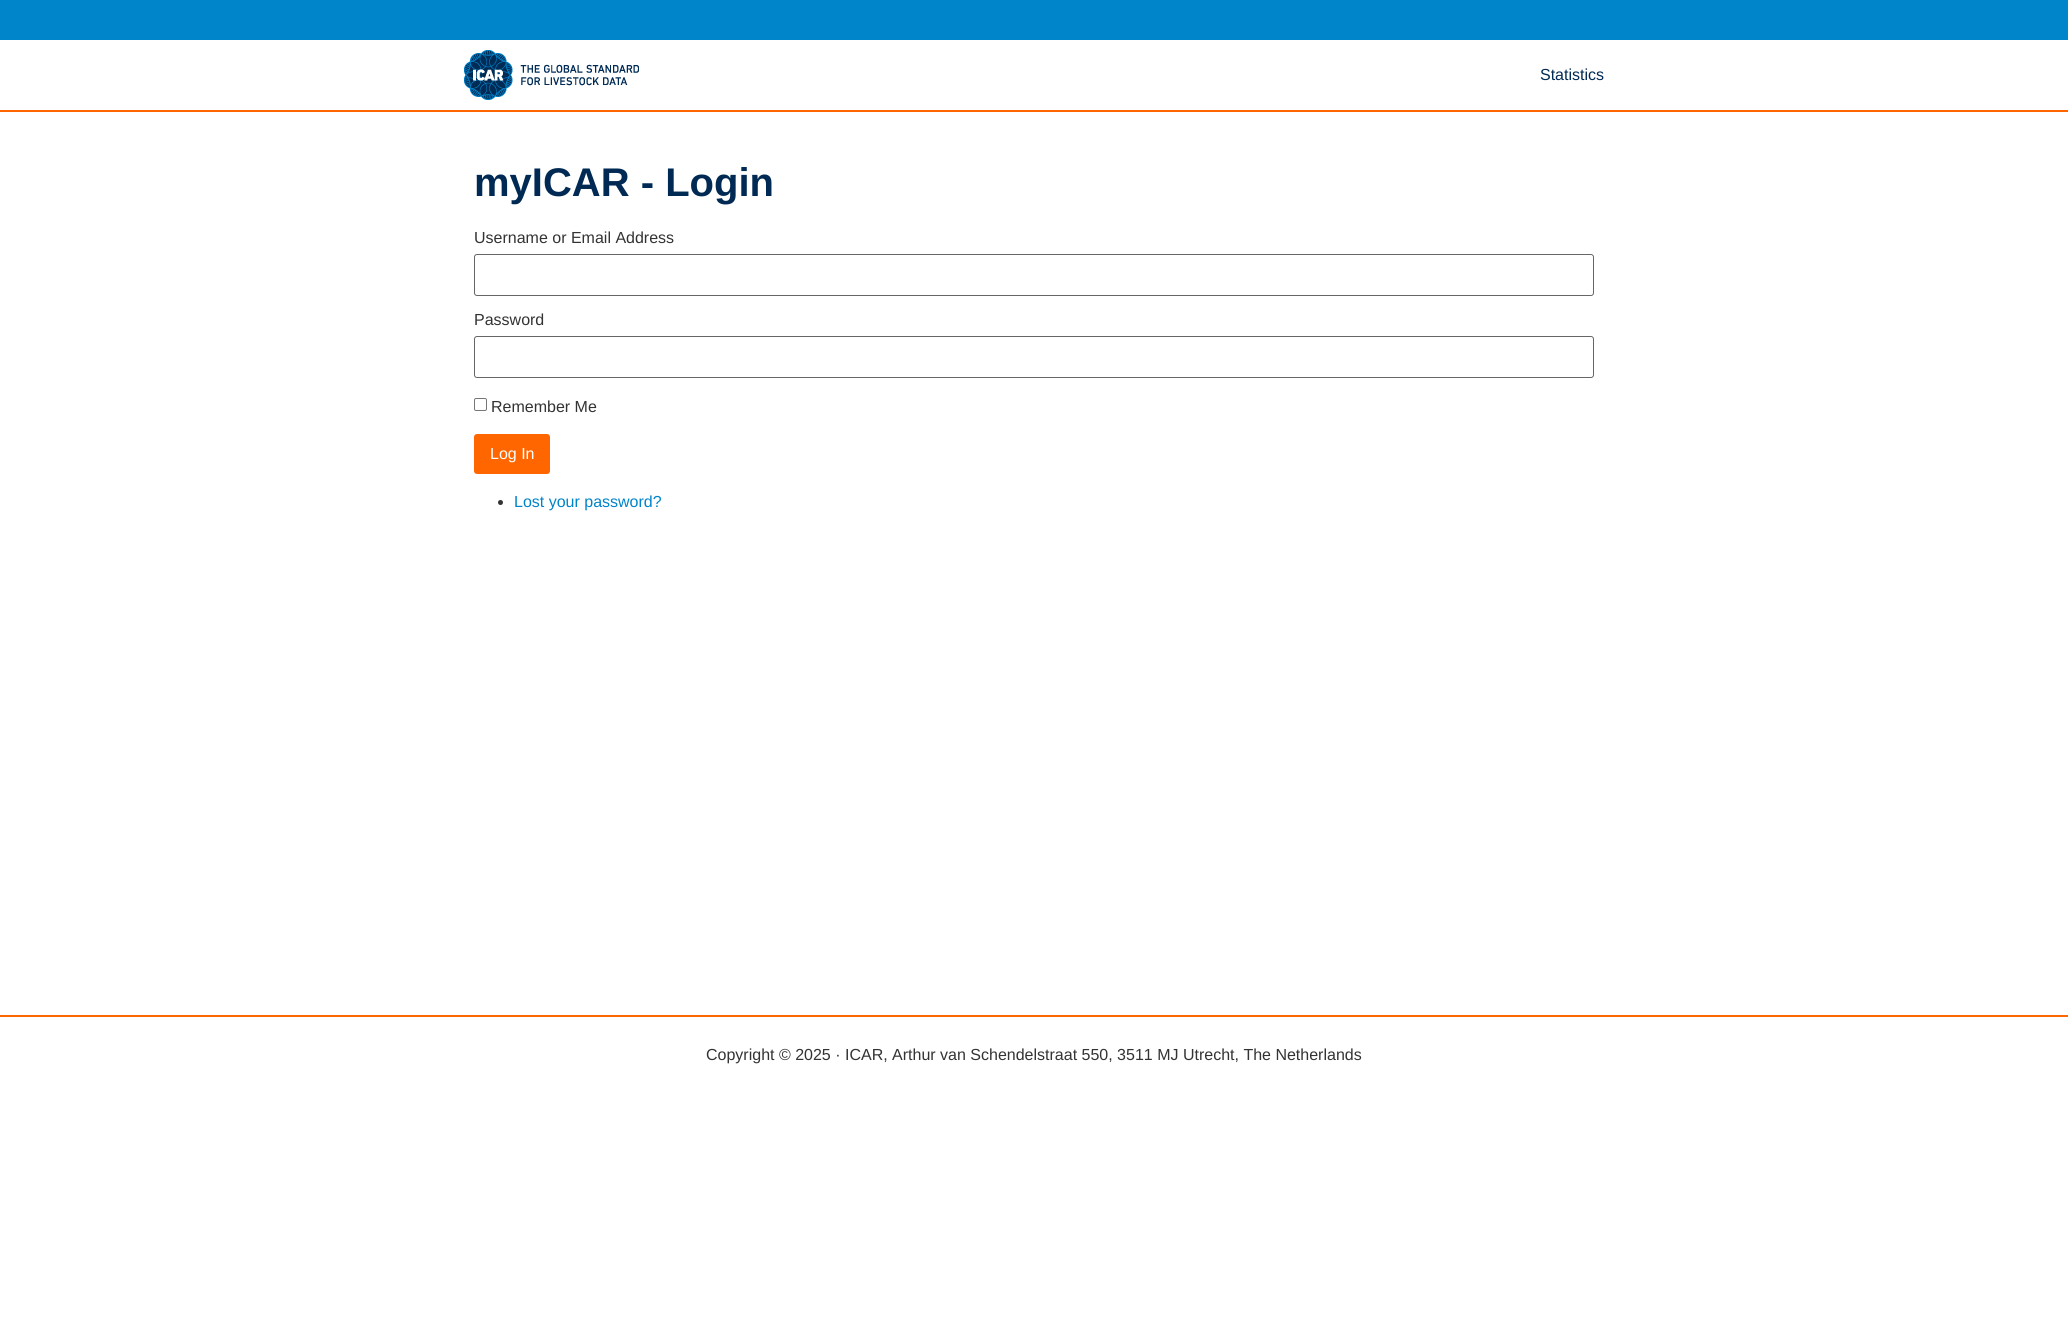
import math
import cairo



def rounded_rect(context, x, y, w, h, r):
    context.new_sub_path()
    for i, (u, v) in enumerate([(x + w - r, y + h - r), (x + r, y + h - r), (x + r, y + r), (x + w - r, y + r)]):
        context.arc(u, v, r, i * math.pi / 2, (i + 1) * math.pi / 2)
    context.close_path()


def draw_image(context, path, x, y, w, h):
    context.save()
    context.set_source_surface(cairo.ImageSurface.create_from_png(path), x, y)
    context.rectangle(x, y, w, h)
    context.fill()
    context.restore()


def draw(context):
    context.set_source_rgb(1, 1, 1)
    context.paint()
    context.set_source_rgb(0, 132 / 255, 202 / 255)
    context.rectangle(0, 0, 2068, 40)
    context.fill()
    context.set_source_rgb(1, 102 / 255, 0)
    context.rectangle(0, 110, 2068, 2)
    context.fill()
    draw_image(context, "images/1.png", 464, 50, 175, 50)
    rounded_rect(context, 474.5, 254.5, 1119, 41, 2.5)
    context.set_source_rgb(102 / 255, 102 / 255, 102 / 255)
    context.set_line_width(1)
    context.stroke()
    rounded_rect(context, 474.5, 336.5, 1119, 41, 2.5)
    context.stroke()
    rounded_rect(context, 474.5, 398.5, 12, 12, 1.5)
    context.set_source_rgb(118 / 255, 118 / 255, 118 / 255)
    context.stroke()
    context.set_source_rgb(1, 102 / 255, 0)
    rounded_rect(context, 474, 434, 76, 40, 3)
    context.fill()
    context.set_source_rgb(51 / 255, 51 / 255, 51 / 255)
    context.arc(500.5, 502.5, 2.5, 0, 2 * math.pi)
    context.fill()
    context.set_source_rgb(1, 102 / 255, 0)
    context.rectangle(0, 1015, 2068, 2)
    context.fill()
    context.select_font_face("Liberation Sans")
    context.set_font_size(16)
    context.set_source_rgb(0, 42 / 255, 84 / 255)
    context.move_to(1540, 80)
    context.show_text("Statistics")
    context.select_font_face("Liberation Sans", cairo.FontSlant.NORMAL, cairo.FontWeight.BOLD)
    context.set_font_size(40)
    context.move_to(474, 196)
    context.show_text("myICAR - Login")
    context.select_font_face("Liberation Sans")
    context.set_font_size(16)
    context.set_source_rgb(51 / 255, 51 / 255, 51 / 255)
    context.move_to(474, 243)
    context.show_text("Username or Email Address")
    context.move_to(474, 325)
    context.show_text("Password")
    context.move_to(491, 412)
    context.show_text("Remember Me")
    context.set_source_rgb(1, 1, 1)
    context.move_to(490, 459)
    context.show_text("Log In")
    context.set_source_rgb(0, 132 / 255, 202 / 255)
    context.move_to(514, 507)
    context.show_text("Lost your password?")
    context.set_source_rgb(51 / 255, 51 / 255, 51 / 255)
    context.move_to(706, 1060)
    context.show_text("Copyright © 2025 · ICAR, Arthur van Schendelstraat 550, 3511 MJ Utrecht, The Netherlands")


surface = cairo.ImageSurface(cairo.Format.RGB24, 2068, 1321)
context = cairo.Context(surface)
options = cairo.FontOptions()
options.set_hint_metrics(cairo.HintMetrics.OFF)
options.set_hint_style(cairo.HintStyle.NONE)
context.set_font_options(options)
context.set_miter_limit(4)
draw(context)
surface.write_to_png("out.png")
